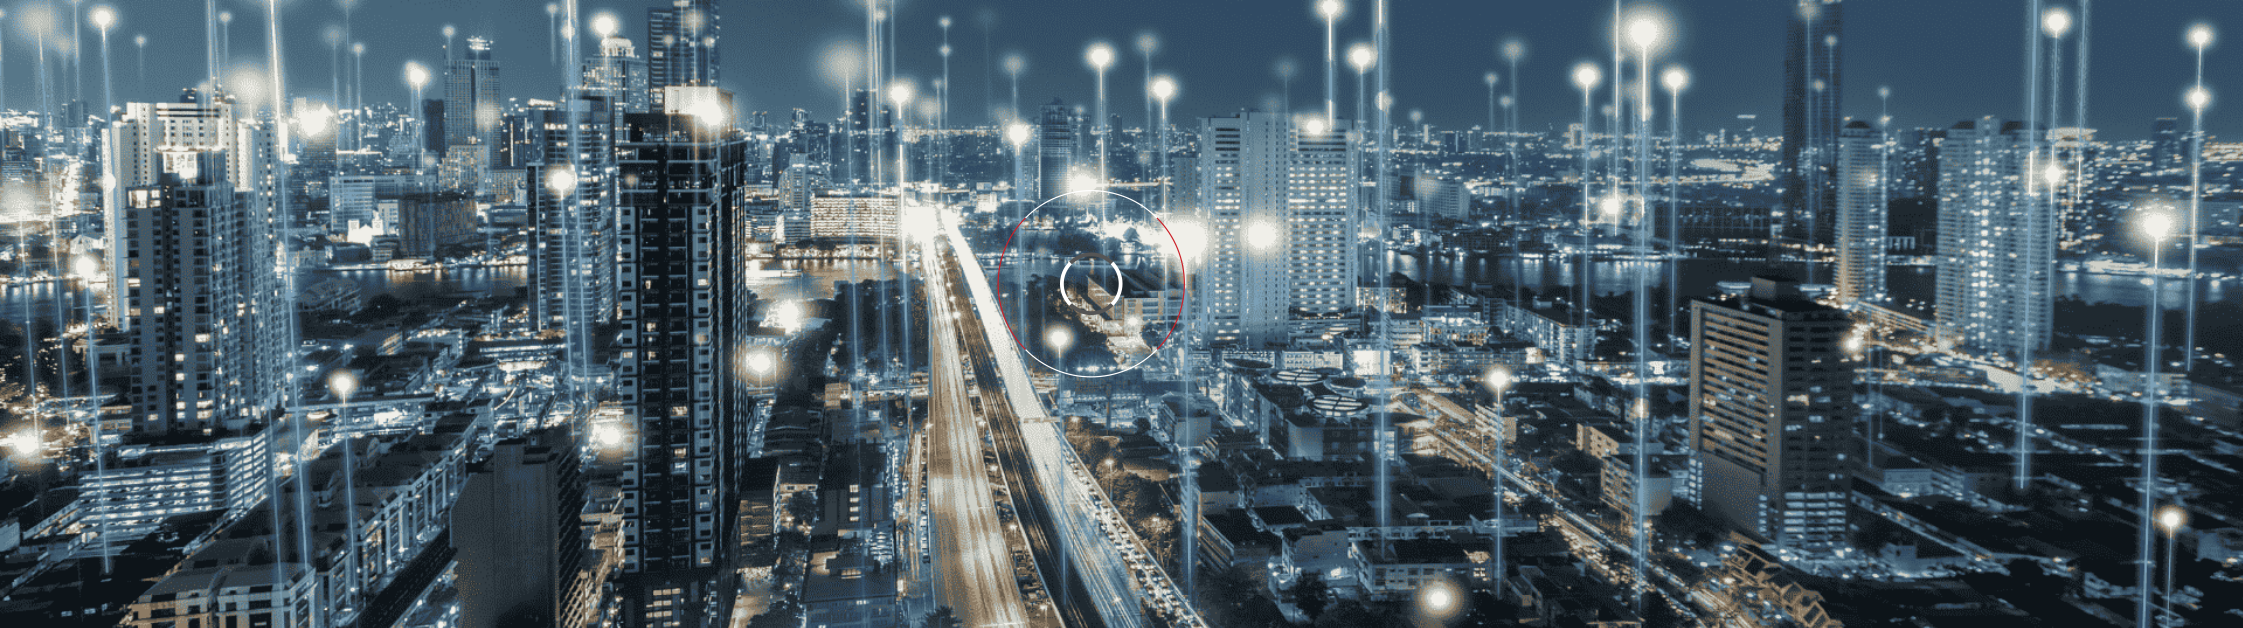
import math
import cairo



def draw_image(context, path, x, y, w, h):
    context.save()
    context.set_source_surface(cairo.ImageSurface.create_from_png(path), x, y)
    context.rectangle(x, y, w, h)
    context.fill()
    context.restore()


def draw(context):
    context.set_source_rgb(1, 1, 1)
    context.paint()
    draw_image(context, "images/1.png", 0, 0, 2243, 628)
    context.new_path()
    context.move_to(1025.5, 218)
    context.curve_to(1061.5, 181.5, 1121, 181.5, 1157, 218)
    context.set_source_rgb(1, 1, 1)
    context.set_line_width(1.2)
    context.stroke()
    context.new_path()
    context.move_to(1157, 218)
    context.curve_to(1193.5, 254, 1193.5, 313.5, 1157, 349.5)
    context.set_source_rgb(203 / 255, 32 / 255, 40 / 255)
    context.stroke()
    context.new_path()
    context.move_to(1157, 349.5)
    context.curve_to(1121, 386, 1061.5, 386, 1025.5, 349.5)
    context.set_source_rgb(1, 1, 1)
    context.stroke()
    context.new_path()
    context.move_to(1025.5, 349.5)
    context.curve_to(989, 313.5, 989, 254, 1025.5, 218)
    context.set_source_rgb(203 / 255, 32 / 255, 40 / 255)
    context.stroke()
    context.new_path()
    context.move_to(1070.5, 263)
    context.curve_to(1082, 251.5, 1100.5, 251.5, 1112, 263)
    context.set_source_rgb(85 / 255, 85 / 255, 85 / 255)
    context.set_line_width(3.8)
    context.stroke()
    context.new_path()
    context.move_to(1112, 263)
    context.curve_to(1123.5, 274.5, 1123.5, 293, 1112, 304.5)
    context.set_source_rgb(1, 1, 1)
    context.stroke()
    context.new_path()
    context.move_to(1112, 304.5)
    context.curve_to(1100.5, 316, 1082, 316, 1070.5, 304.5)
    context.set_source_rgb(85 / 255, 85 / 255, 85 / 255)
    context.stroke()
    context.new_path()
    context.move_to(1070.5, 304.5)
    context.curve_to(1059, 293, 1059, 274.5, 1070.5, 263)
    context.set_source_rgb(1, 1, 1)
    context.stroke()


surface = cairo.ImageSurface(cairo.Format.RGB24, 2243, 628)
context = cairo.Context(surface)
options = cairo.FontOptions()
options.set_hint_metrics(cairo.HintMetrics.OFF)
options.set_hint_style(cairo.HintStyle.NONE)
context.set_font_options(options)
context.set_miter_limit(4)
draw(context)
surface.write_to_png("out.png")
